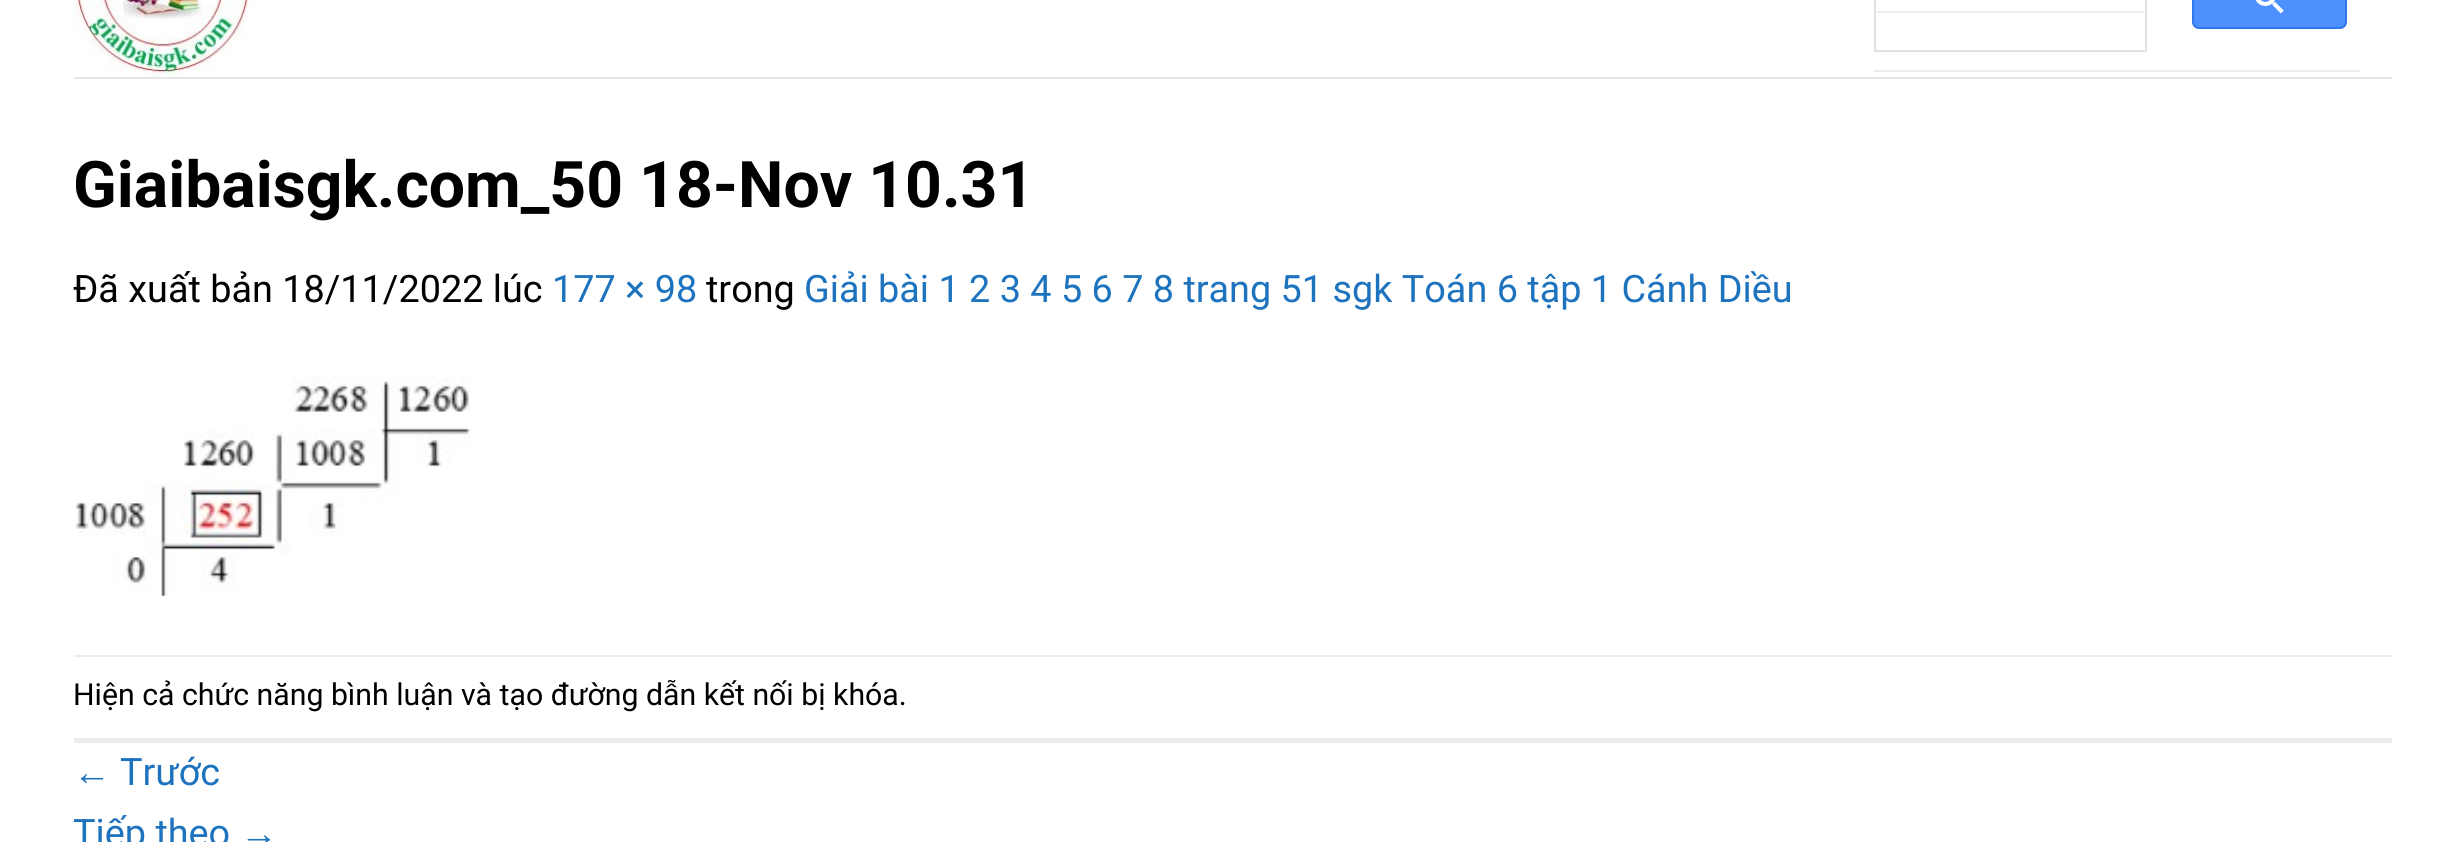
import math
import cairo



def rounded_rect(context, x, y, w, h, r):
    context.new_sub_path()
    for i, (u, v) in enumerate([(x + w - r, y + h - r), (x + r, y + h - r), (x + r, y + r), (x + w - r, y + r)]):
        context.arc(u, v, r, i * math.pi / 2, (i + 1) * math.pi / 2)
    context.close_path()


def draw_image(context, path, x, y, w, h):
    context.save()
    context.set_source_surface(cairo.ImageSurface.create_from_png(path), x, y)
    context.rectangle(x, y, w, h)
    context.fill()
    context.restore()


def draw(context):
    context.set_source_rgb(1, 1, 1)
    context.paint()
    draw_image(context, "images/1.png", 74, 0, 178, 76)
    context.set_source_rgb(77 / 255, 144 / 255, 254 / 255)
    rounded_rect(context, 2193, -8, 153, 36, 6)
    context.fill_preserve()
    context.set_source_rgb(48 / 255, 121 / 255, 237 / 255)
    context.stroke()
    draw_image(context, "images/2.png", 2255, 0, 29, 14)
    context.set_source_rgb(236 / 255, 236 / 255, 236 / 255)
    context.rectangle(1874, 70, 486, 2)
    context.fill()
    context.rectangle(1875, -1, 271, 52)
    context.set_source_rgb(223 / 255, 225 / 255, 229 / 255)
    context.stroke()
    context.set_source_rgb(236 / 255, 236 / 255, 236 / 255)
    context.rectangle(1877, 11, 267, 2)
    context.fill()
    context.set_source_rgb(230 / 255, 230 / 255, 230 / 255)
    context.rectangle(74, 77, 2318, 2)
    context.fill()
    draw_image(context, "images/3.png", 76, 375, 395, 221)
    context.set_source_rgb(236 / 255, 236 / 255, 236 / 255)
    context.rectangle(74, 655, 2318, 2)
    context.fill()
    context.rectangle(74, 738, 2318, 5)
    context.fill()
    context.select_font_face("Roboto", cairo.FontSlant.NORMAL, cairo.FontWeight.BOLD)
    context.set_font_size(64.25)
    context.set_source_rgb(0, 0, 0)
    context.move_to(73, 207)
    context.show_text("Giaibaisgk.com_50 18-Nov 10.31")
    context.select_font_face("Roboto")
    context.set_font_size(37.8)
    context.move_to(73, 302)
    context.show_text("Đã xuất bản 18/11/2022 lúc")
    context.set_source_rgb(30 / 255, 115 / 255, 190 / 255)
    context.move_to(552, 302)
    context.show_text("177 × 98")
    context.set_source_rgb(0, 0, 0)
    context.move_to(706, 302)
    context.show_text("trong")
    context.set_source_rgb(30 / 255, 115 / 255, 190 / 255)
    context.move_to(804, 302)
    context.show_text("Giải bài 1 2 3 4 5 6 7 8 trang 51 sgk Toán 6 tập 1 Cánh Diều")
    context.set_font_size(30.25)
    context.set_source_rgb(0, 0, 0)
    context.move_to(73, 705)
    context.show_text("Hiện cả chức năng bình luận và tạo đường dẫn kết nối bị khóa.")
    context.select_font_face("Liberation Sans")
    context.set_font_size(37.8)
    context.set_source_rgb(30 / 255, 115 / 255, 190 / 255)
    context.move_to(73, 785)
    context.show_text("←")
    context.select_font_face("Roboto")
    context.move_to(120, 785)
    context.show_text("Trước")
    context.move_to(73, 846)
    context.show_text("Tiếp theo")
    context.select_font_face("Liberation Sans")
    context.move_to(240, 846)
    context.show_text("→")


surface = cairo.ImageSurface(cairo.Format.RGB24, 2463, 842)
context = cairo.Context(surface)
options = cairo.FontOptions()
options.set_hint_metrics(cairo.HintMetrics.OFF)
options.set_hint_style(cairo.HintStyle.NONE)
context.set_font_options(options)
context.set_miter_limit(4)
draw(context)
surface.write_to_png("out.png")
